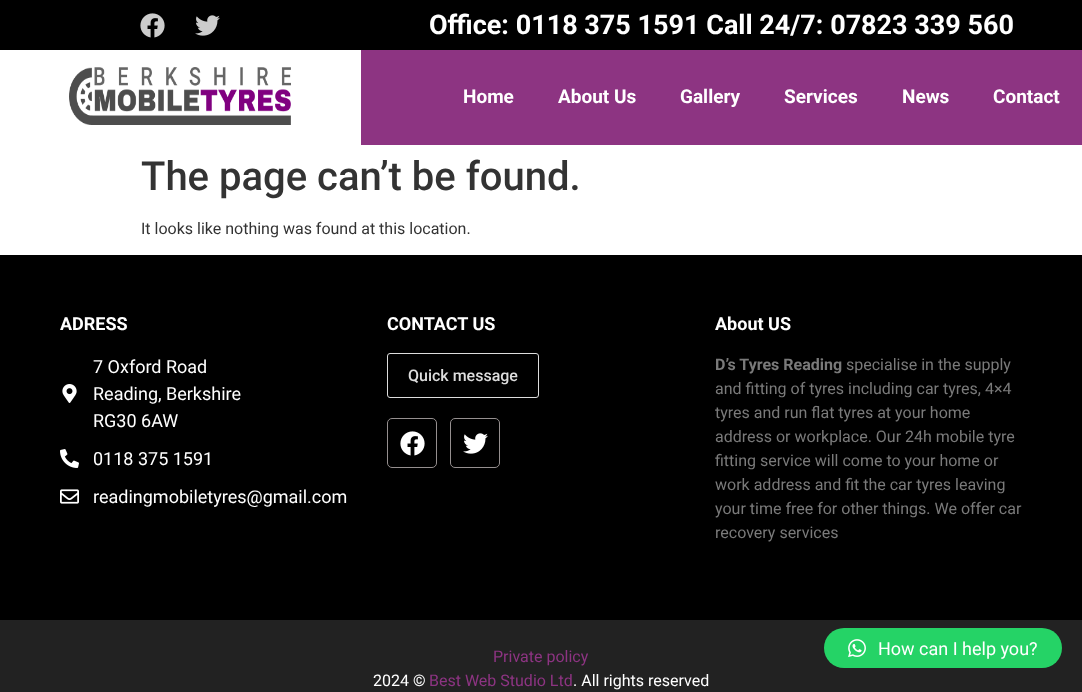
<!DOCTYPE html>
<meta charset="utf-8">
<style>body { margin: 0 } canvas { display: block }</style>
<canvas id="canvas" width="1082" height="692"></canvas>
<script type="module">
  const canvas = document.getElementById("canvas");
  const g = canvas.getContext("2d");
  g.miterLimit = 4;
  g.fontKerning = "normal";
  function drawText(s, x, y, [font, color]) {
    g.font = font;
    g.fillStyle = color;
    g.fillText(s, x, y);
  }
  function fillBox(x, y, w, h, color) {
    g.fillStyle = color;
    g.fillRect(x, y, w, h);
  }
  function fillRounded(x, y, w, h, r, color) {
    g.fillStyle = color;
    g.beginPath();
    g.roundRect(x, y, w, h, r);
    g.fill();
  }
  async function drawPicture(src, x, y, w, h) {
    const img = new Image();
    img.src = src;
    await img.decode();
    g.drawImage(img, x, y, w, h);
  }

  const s1 = ["bold 27px Roboto", "#FFFFFF"];
  const s2 = ["bold 19px Roboto", "#FFFFFF"];
  const s3 = ["500 40px Roboto", "#333333"];
  const s4 = ["16px Roboto", "#333333"];
  const s5 = ["bold 18px Roboto", "#FFFFFF"];
  const s6 = ["18px Roboto", "#FFFFFF"];
  const s7 = ["500 16px Roboto", "#DDDDDD"];
  const s8 = ["bold 16px Roboto", "#7A7A7A"];
  const s9 = ["16px Roboto", "#7A7A7A"];
  const s10 = ["16px Roboto", "#8D3482"];
  const s11 = ["16px Roboto", "#FFFFFF"];

  fillBox(0, 0, 1082, 692, "#FFFFFF");
  fillBox(0, 0, 1082, 50, "#000000");
  await drawPicture("pic1.png", 140, 13, 25, 25);
  await drawPicture("pic2.png", 195, 15, 25, 21);
  drawText("Office: 0118 375 1591 Call 24/7: 07823 339 560", 429, 34, s1);
  await drawPicture("pic3.png", 69, 67, 222, 58);
  fillBox(361, 50, 721, 95, "#8D3482");
  drawText("Home", 463, 103, s2);
  drawText("About Us", 558, 103, s2);
  drawText("Gallery", 680, 103, s2);
  drawText("Services", 784, 103, s2);
  drawText("News", 902, 103, s2);
  drawText("Contact", 993, 103, s2);
  drawText("The page can’t be found.", 141, 190, s3);
  drawText("It looks like nothing was found at this location.", 141, 234, s4);
  fillBox(0, 255, 1082, 365, "#000000");
  drawText("ADRESS", 60, 330, s5);
  await drawPicture("pic4.png", 62, 384, 15, 19);
  drawText("7 Oxford Road", 93, 373, s6);
  drawText("Reading, Berkshire", 93, 400, s6);
  drawText("RG30 6AW", 93, 427, s6);
  await drawPicture("pic5.png", 60, 449, 19, 19);
  drawText("0118 375 1591", 93, 465, s6);
  await drawPicture("pic6.png", 60, 489, 19, 15);
  drawText("readingmobiletyres@gmail.com", 93, 503, s6);
  drawText("CONTACT US", 387, 330, s5);
  g.beginPath();
  g.roundRect(387.5, 353.5, 151, 44, 2.5);
  g.strokeStyle = "#DDDDDD";
  g.stroke();
  drawText("Quick message", 408, 381, s7);
  g.beginPath();
  g.roundRect(387.5, 418.5, 49, 49, 4.5);
  g.strokeStyle = "#958F8F";
  g.stroke();
  await drawPicture("pic7.png", 400, 431, 25, 25);
  g.beginPath();
  g.roundRect(450.5, 418.5, 49, 49, 4.5);
  g.stroke();
  await drawPicture("pic8.png", 463, 433, 25, 21);
  drawText("About US", 715, 330, s5);
  drawText("D’s Tyres Reading", 715, 370, s8);
  drawText("specialise in the supply", 846, 370, s9);
  drawText("and fitting of tyres including car tyres, 4×4", 715, 394, s9);
  drawText("tyres and run flat tyres at your home", 715, 418, s9);
  drawText("address or workplace. Our 24h mobile tyre", 715, 442, s9);
  drawText("fitting service will come to your home or", 715, 466, s9);
  drawText("work address and fit the car tyres leaving", 715, 490, s9);
  drawText("your time free for other things. We offer car", 715, 514, s9);
  drawText("recovery services", 715, 538, s9);
  fillBox(0, 620, 1082, 72, "#222222");
  drawText("Private policy", 493, 662, s10);
  drawText("2024 ©", 373, 686, s11);
  drawText("Best Web Studio Ltd", 429, 686, s10);
  drawText(". All rights reserved", 573, 686, s11);
  fillRounded(824, 628, 238, 40, 20, "#25D366");
  await drawPicture("pic9.png", 848, 639, 18, 19);
  drawText("How can I help you?", 878, 655, s6);
</script>
